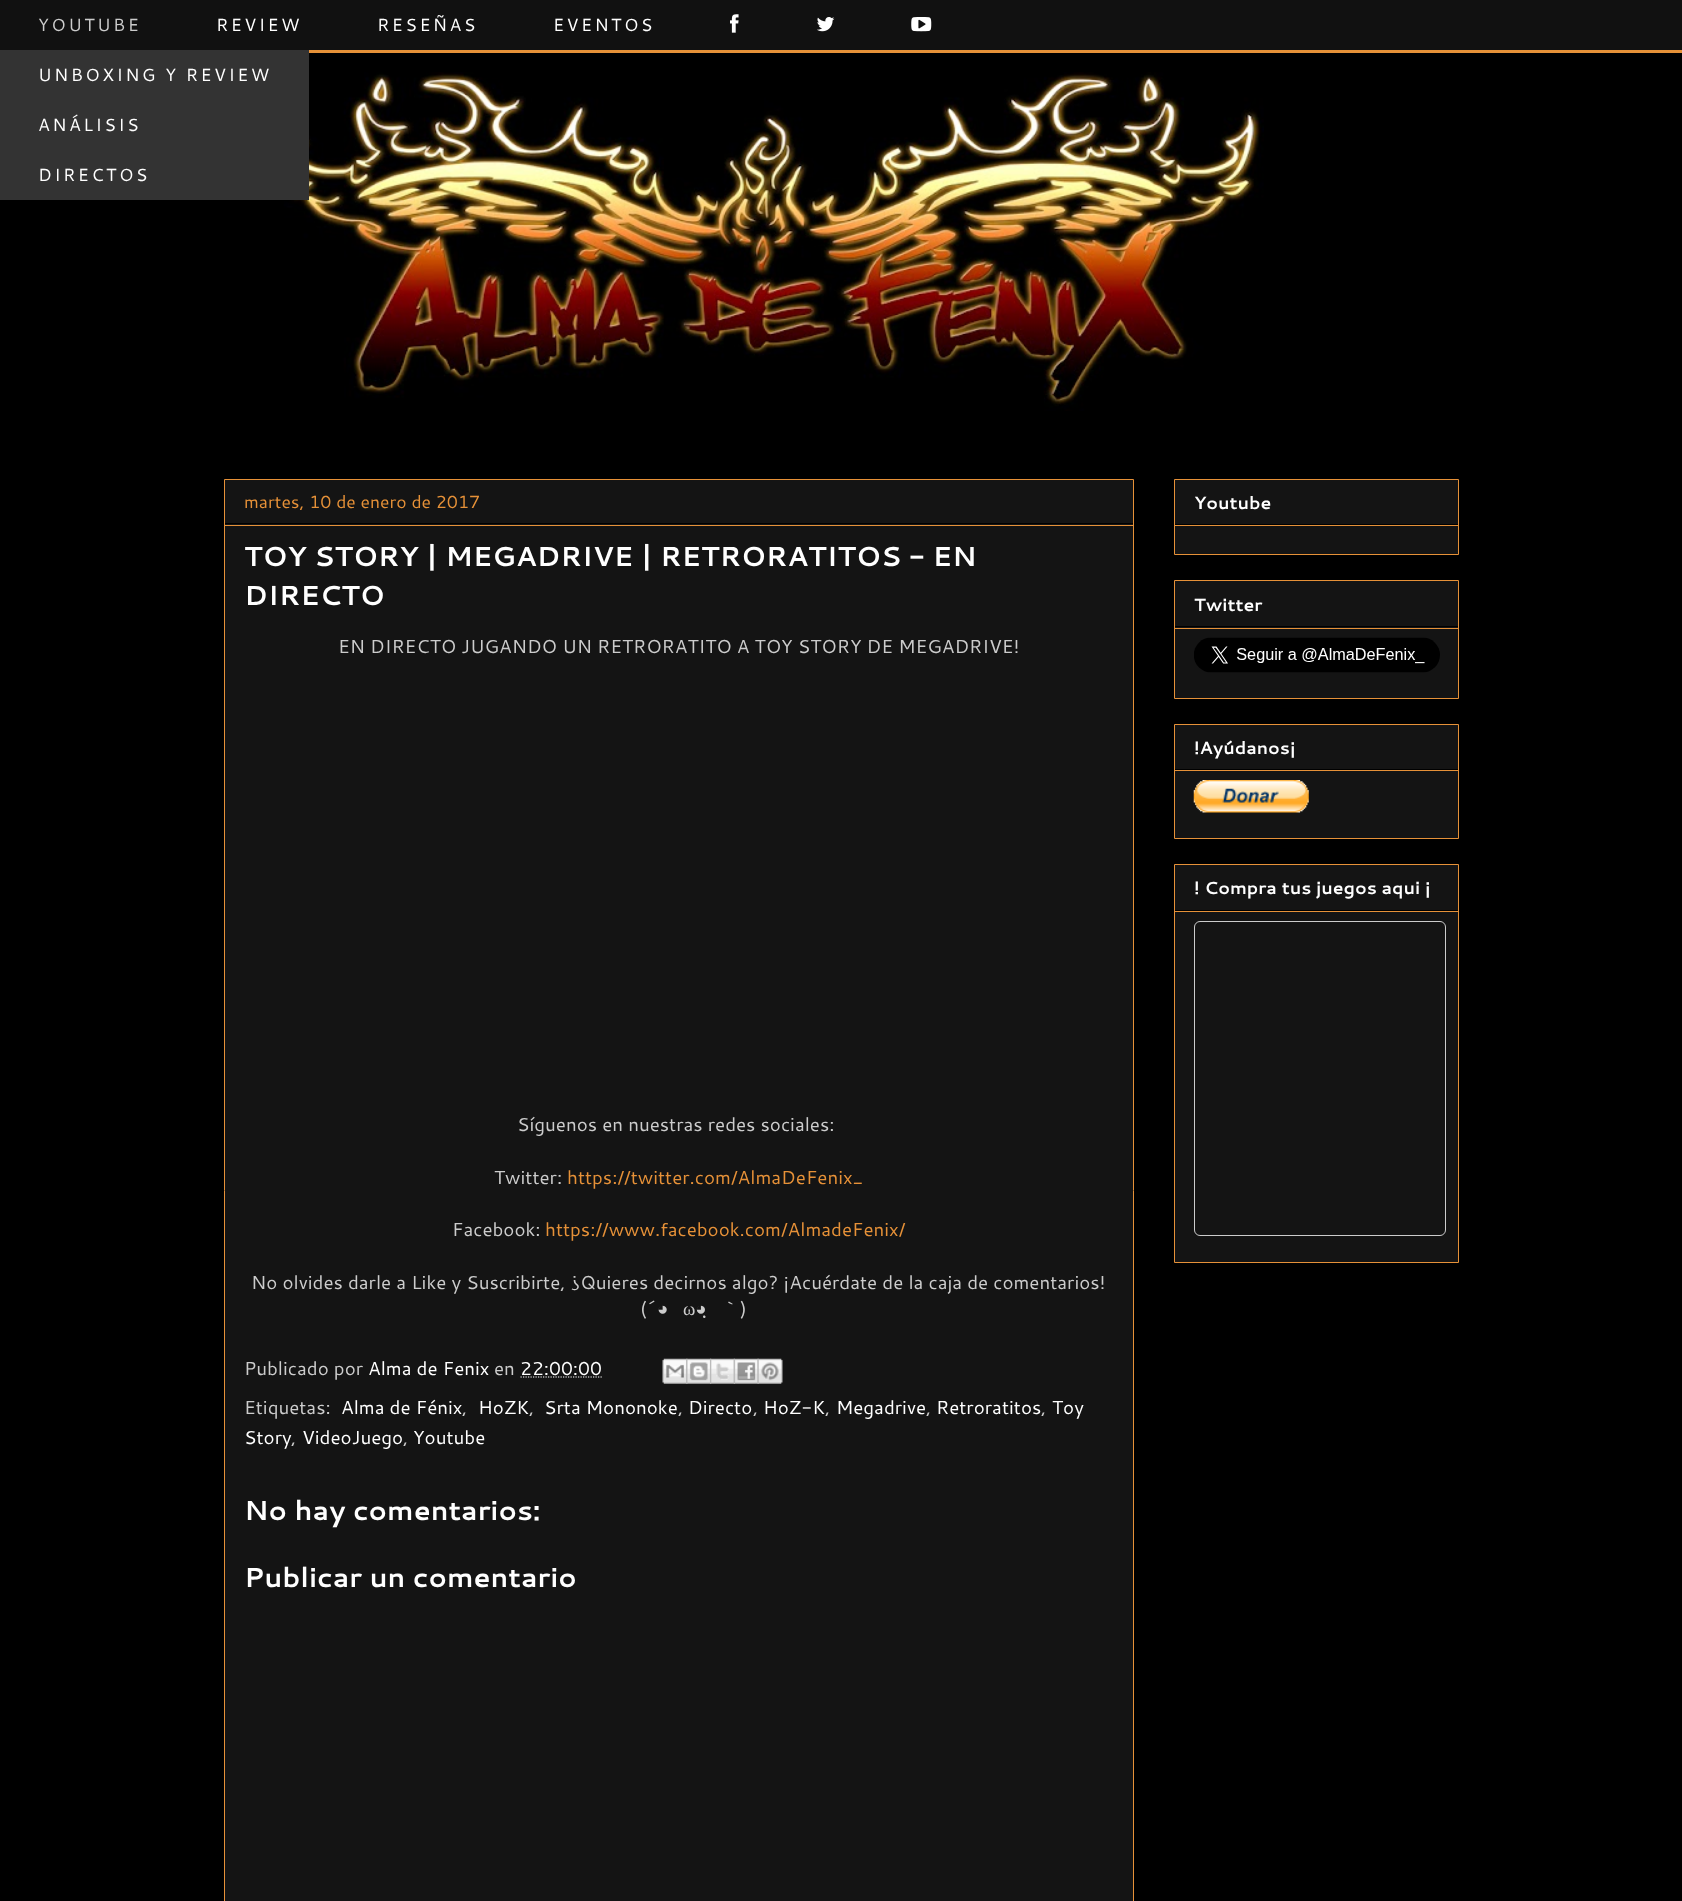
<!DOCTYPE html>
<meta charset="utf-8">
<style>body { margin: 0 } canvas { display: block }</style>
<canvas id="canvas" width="1682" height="1901"></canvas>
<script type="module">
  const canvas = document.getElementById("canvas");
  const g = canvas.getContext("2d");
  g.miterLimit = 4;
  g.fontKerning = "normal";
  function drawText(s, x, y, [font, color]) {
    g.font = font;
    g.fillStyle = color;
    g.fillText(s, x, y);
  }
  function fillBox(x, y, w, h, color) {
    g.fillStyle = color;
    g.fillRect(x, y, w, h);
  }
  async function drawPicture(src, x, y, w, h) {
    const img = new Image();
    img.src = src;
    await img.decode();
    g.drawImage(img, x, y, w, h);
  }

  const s1 = ["17.5px Cantarell", "#CCCCCC"];
  const s2 = ["17.5px Cantarell", "#FFFFFF"];
  const s3 = ["17.5px Cantarell", "#E69138"];
  const s4 = ["bold 27.5px Cantarell", "#FFFFFF"];
  const s5 = ["18.75px Cantarell", "#CCCCCC"];
  const s6 = ["18.75px Cantarell", "#E69138"];
  const s7 = ["500 18.75px WenQuanYi Zen Hei", "#CCCCCC"];
  const s8 = ["18.75px Liberation Serif", "#CCCCCC"];
  const s9 = ["18.75px Cantarell", "#FFFFFF"];
  const s10 = ["bold 17.5px Cantarell", "#FFFFFF"];

  fillBox(0, 0, 1682, 1901, "#000000");
  fillBox(0, 0, 1682, 50, "#111111");
  fillBox(309, 50, 1373, 3, "#E69138");
  g.letterSpacing = "2.5px";
  drawText("YOUTUBE", 38, 31, s1);
  await drawPicture("pic4.png", 264, 72, 1000, 339);
  fillBox(0, 50, 309, 150, "#333333");
  drawText("UNBOXING Y REVIEW", 38, 81, s2);
  drawText("ANÁLISIS", 38, 131, s2);
  drawText("DIRECTOS", 38, 181, s2);
  drawText("RESEÑAS", 377, 31, s2);
  await drawPicture("pic1.png", 730, 14, 9, 19);
  await drawPicture("pic2.png", 817, 17, 18, 15);
  await drawPicture("pic3.png", 911, 17, 21, 15);
  drawText("REVIEW", 216, 31, s2);
  drawText("EVENTOS", 553, 31, s2);
  g.fillStyle = "#141414";
  g.beginPath();
  g.rect(224.5, 479.5, 909, 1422);
  g.fill();
  g.strokeStyle = "#E69138";
  g.stroke();
  fillBox(225, 523, 908, 1, "#000000");
  g.letterSpacing = "0px";
  drawText("martes, 10 de enero de 2017", 244, 508, s3);
  fillBox(225, 525, 908, 1, "#E69138");
  drawText("TOY STORY | MEGADRIVE | RETRORATITOS - EN", 244, 566, s4);
  drawText("DIRECTO", 244, 605, s4);
  drawText("EN DIRECTO JUGANDO UN RETRORATITO A TOY STORY DE MEGADRIVE!", 338, 653, s5);
  drawText("Síguenos en nuestras redes sociales:", 517, 1131, s5);
  drawText("Twitter:", 494, 1184, s5);
  drawText("https://twitter.com/AlmaDeFenix_", 567, 1184, s6);
  drawText("Facebook:", 452, 1236, s5);
  drawText("https://www.facebook.com/AlmadeFenix/", 545, 1236, s6);
  drawText("No olvides darle a Like y Suscribirte, ¿Quieres decirnos algo? ¡Acuérdate de la caja de comentarios!", 251, 1289, s5);
  drawText("(´", 640, 1315, s5);
  drawText("｀", 721, 1315, s7);
  drawText(")", 740, 1315, s5);
  drawText("◕ฺω◕ฺ", 657, 1315, s8);
  drawText("Publicado por", 244, 1375, s5);
  drawText("Alma de Fenix", 368, 1375, s9);
  drawText("en", 494, 1375, s5);
  drawText("22:00:00", 520, 1375, s9);
  g.beginPath();
  g.moveTo(520.5, 1377);
  g.lineTo(602.5, 1377);
  g.strokeStyle = "#FFFFFF";
  g.lineWidth = 1.2;
  g.setLineDash([1.25, 1.25]);
  g.stroke();
  await drawPicture("pic5.png", 662, 1358, 26, 26);
  await drawPicture("pic6.png", 686, 1358, 26, 26);
  await drawPicture("pic7.png", 710, 1358, 25, 26);
  await drawPicture("pic8.png", 733, 1358, 26, 26);
  await drawPicture("pic9.png", 757, 1358, 26, 26);
  drawText("Etiquetas:", 244, 1414, s5);
  drawText("Alma de Fénix", 341, 1414, s9);
  drawText(",", 462, 1414, s5);
  drawText("HoZK", 478, 1414, s9);
  drawText(",", 529, 1414, s5);
  drawText("Srta Mononoke", 544, 1414, s9);
  drawText(",", 678, 1414, s5);
  drawText("Directo", 688, 1414, s9);
  drawText(",", 753, 1414, s5);
  drawText("HoZ-K", 763, 1414, s9);
  drawText(",", 825, 1414, s5);
  drawText("Megadrive", 836, 1414, s9);
  drawText(",", 926, 1414, s5);
  drawText("Retroratitos", 936, 1414, s9);
  drawText(",", 1041, 1414, s5);
  drawText("Toy", 1052, 1414, s9);
  drawText("Story", 244, 1444, s9);
  drawText(",", 291, 1444, s5);
  drawText("VideoJuego", 302, 1444, s9);
  drawText(",", 403, 1444, s5);
  drawText("Youtube", 413, 1444, s9);
  drawText("No hay comentarios:", 244, 1520, s4);
  drawText("Publicar un comentario", 244, 1587, s4);
  g.fillStyle = "#141414";
  g.beginPath();
  g.rect(1174.5, 479.5, 284, 75);
  g.fill();
  g.strokeStyle = "#E69138";
  g.lineWidth = 1;
  g.setLineDash([]);
  g.stroke();
  fillBox(1175, 524, 283, 1, "#000000");
  drawText("Youtube", 1194, 509, s10);
  fillBox(1175, 525, 283, 1, "#E69138");
  g.fillStyle = "#141414";
  g.beginPath();
  g.rect(1174.5, 580.5, 284, 118);
  g.fill();
  g.stroke();
  fillBox(1175, 626, 283, 1, "#000000");
  drawText("Twitter", 1194, 611, s10);
  fillBox(1175, 628, 283, 1, "#E69138");
  await drawPicture("pic10.png", 1194, 637, 246, 36);
  g.fillStyle = "#141414";
  g.beginPath();
  g.rect(1174.5, 724.5, 284, 114);
  g.fill();
  g.stroke();
  fillBox(1175, 769, 283, 1, "#000000");
  drawText("!Ayúdanos¡", 1194, 754, s10);
  fillBox(1175, 770, 283, 1, "#E69138");
  await drawPicture("pic11.png", 1193, 780, 116, 33);
  g.fillStyle = "#141414";
  g.beginPath();
  g.rect(1174.5, 864.5, 284, 398);
  g.fill();
  g.stroke();
  fillBox(1175, 910, 283, 1, "#000000");
  drawText("! Compra tus juegos aqui ¡", 1194, 894, s10);
  fillBox(1175, 911, 283, 1, "#E69138");
  g.beginPath();
  g.roundRect(1194.5, 921.5, 251, 314, 5.5);
  g.strokeStyle = "#CCCCCC";
  g.stroke();
</script>
